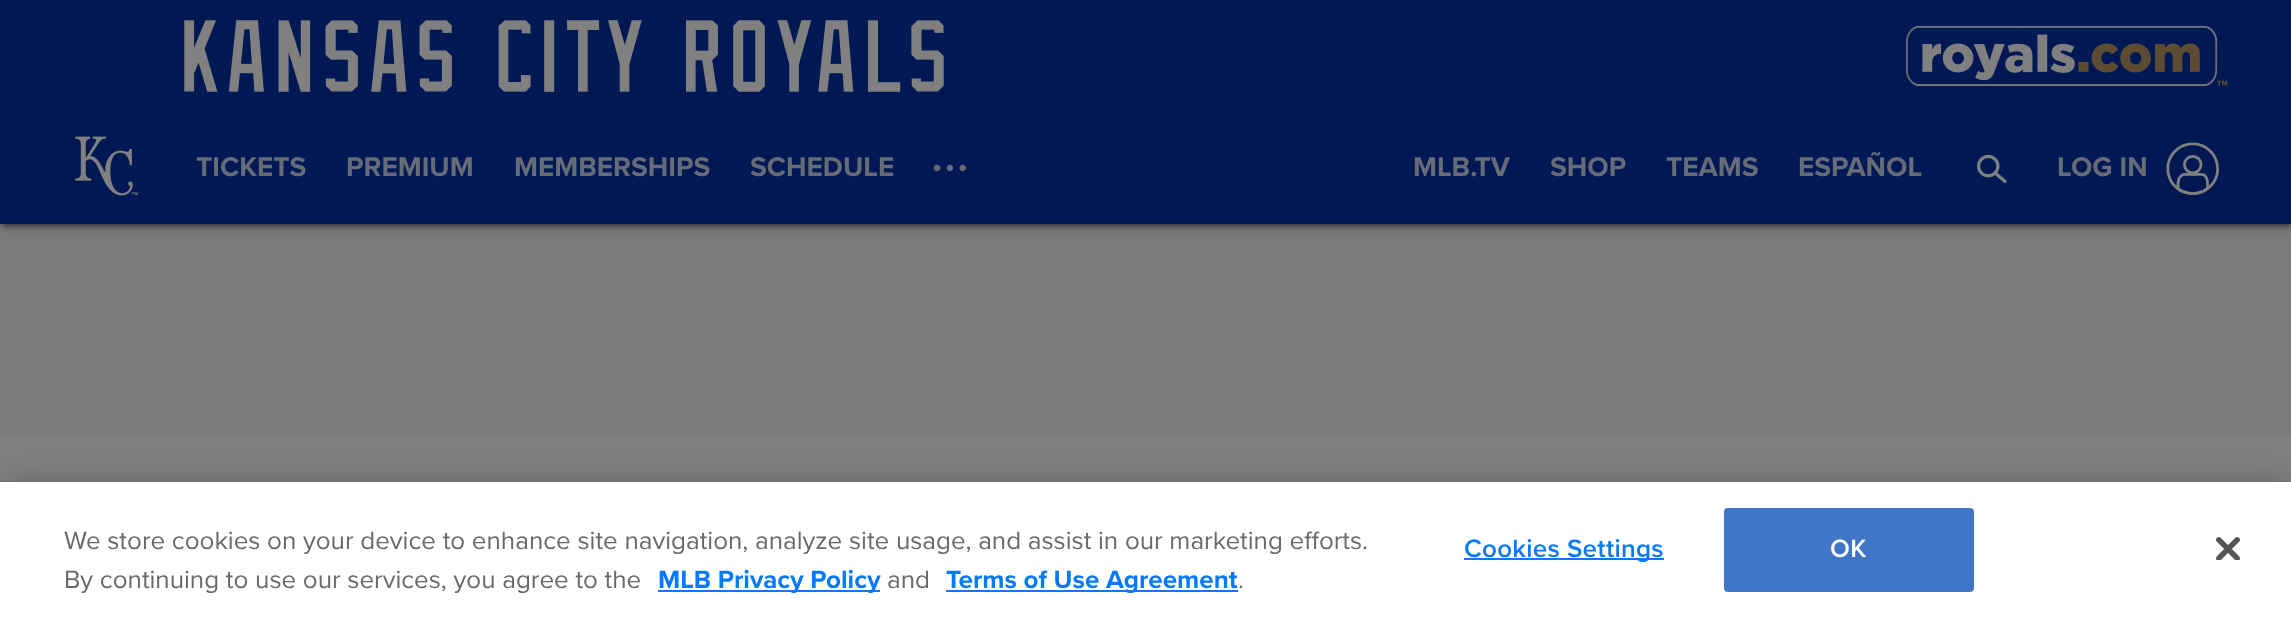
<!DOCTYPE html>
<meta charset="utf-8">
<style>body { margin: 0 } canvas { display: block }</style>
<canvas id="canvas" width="2291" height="623"></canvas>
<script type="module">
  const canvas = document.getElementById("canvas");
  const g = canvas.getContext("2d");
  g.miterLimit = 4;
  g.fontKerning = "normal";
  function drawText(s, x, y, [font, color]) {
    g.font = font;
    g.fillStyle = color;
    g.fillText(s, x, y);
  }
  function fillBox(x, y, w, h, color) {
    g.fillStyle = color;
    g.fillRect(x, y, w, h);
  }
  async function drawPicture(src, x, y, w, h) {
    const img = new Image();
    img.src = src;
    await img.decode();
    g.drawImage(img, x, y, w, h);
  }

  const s1 = ["bold 28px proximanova", "#666B77"];
  const s2 = ["26.02px proximanova", "#696969"];
  const s3 = ["bold 26.02px proximanova", "#057AFF"];
  const s4 = ["600 26.02px Proxima Nova", "#057AFF"];
  const s5 = ["600 26.02px Proxima Nova", "#FFFFFF"];

  fillBox(0, 0, 2291, 623, "#808080");
  fillBox(0, 224, 2291, 212, "#7A7A7A");
  g.fillStyle = "#000000";
  g.filter = "blur(5px)";
  g.beginPath();
  g.rect(2, 0, 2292, 224);
  g.fill();
  g.filter = "none";
  fillBox(0, 0, 2291, 224, "#001954");
  await drawPicture("pic1.png", 184, 20, 760, 72);
  await drawPicture("pic2.png", 1906, 26, 322, 60);
  await drawPicture("pic3.png", 75, 136, 63, 60);
  drawText("TICKETS", 196, 176, s1);
  drawText("PREMIUM", 346, 176, s1);
  drawText("MEMBERSHIPS", 514, 176, s1);
  drawText("SCHEDULE", 750, 176, s1);
  await drawPicture("pic4.png", 934, 164, 32, 8);
  drawText("MLB.TV", 1413, 176, s1);
  drawText("SHOP", 1550, 176, s1);
  drawText("TEAMS", 1666, 176, s1);
  drawText("ESPAÑOL", 1798, 176, s1);
  await drawPicture("pic5.png", 1977, 154, 30, 30);
  drawText("LOG IN", 2057, 176, s1);
  await drawPicture("pic6.png", 2166, 142, 54, 61);
  g.fillStyle = "rgba(0, 0, 0, 0.2)";
  g.filter = "blur(18px)";
  g.beginPath();
  g.rect(0, 482, 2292, 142);
  g.fill();
  g.filter = "none";
  fillBox(0, 482, 2291, 141, "#FFFFFF");
  drawText("We store cookies on your device to enhance site navigation, analyze site usage, and assist in our marketing efforts.", 64, 549, s2);
  drawText("By continuing to use our services, you agree to the", 64, 588, s2);
  fillBox(658, 590, 222, 2, "#057AFF");
  drawText("MLB Privacy Policy", 658, 588, s3);
  drawText("and", 887, 588, s2);
  fillBox(946, 590, 292, 2, "#057AFF");
  drawText("Terms of Use Agreement", 946, 588, s3);
  drawText(".", 1238, 588, s2);
  fillBox(1464, 558, 200, 2, "#057AFF");
  g.letterSpacing = "0.25px";
  drawText("Cookies Settings", 1464, 557, s4);
  g.fillStyle = "#4076C7";
  g.beginPath();
  g.roundRect(1725, 509, 248, 82, 3);
  g.fill();
  g.strokeStyle = "#4076C7";
  g.lineWidth = 2;
  g.stroke();
  drawText("OK", 1830, 557, s5);
  await drawPicture("pic7.png", 2216, 537, 24, 23);
</script>
